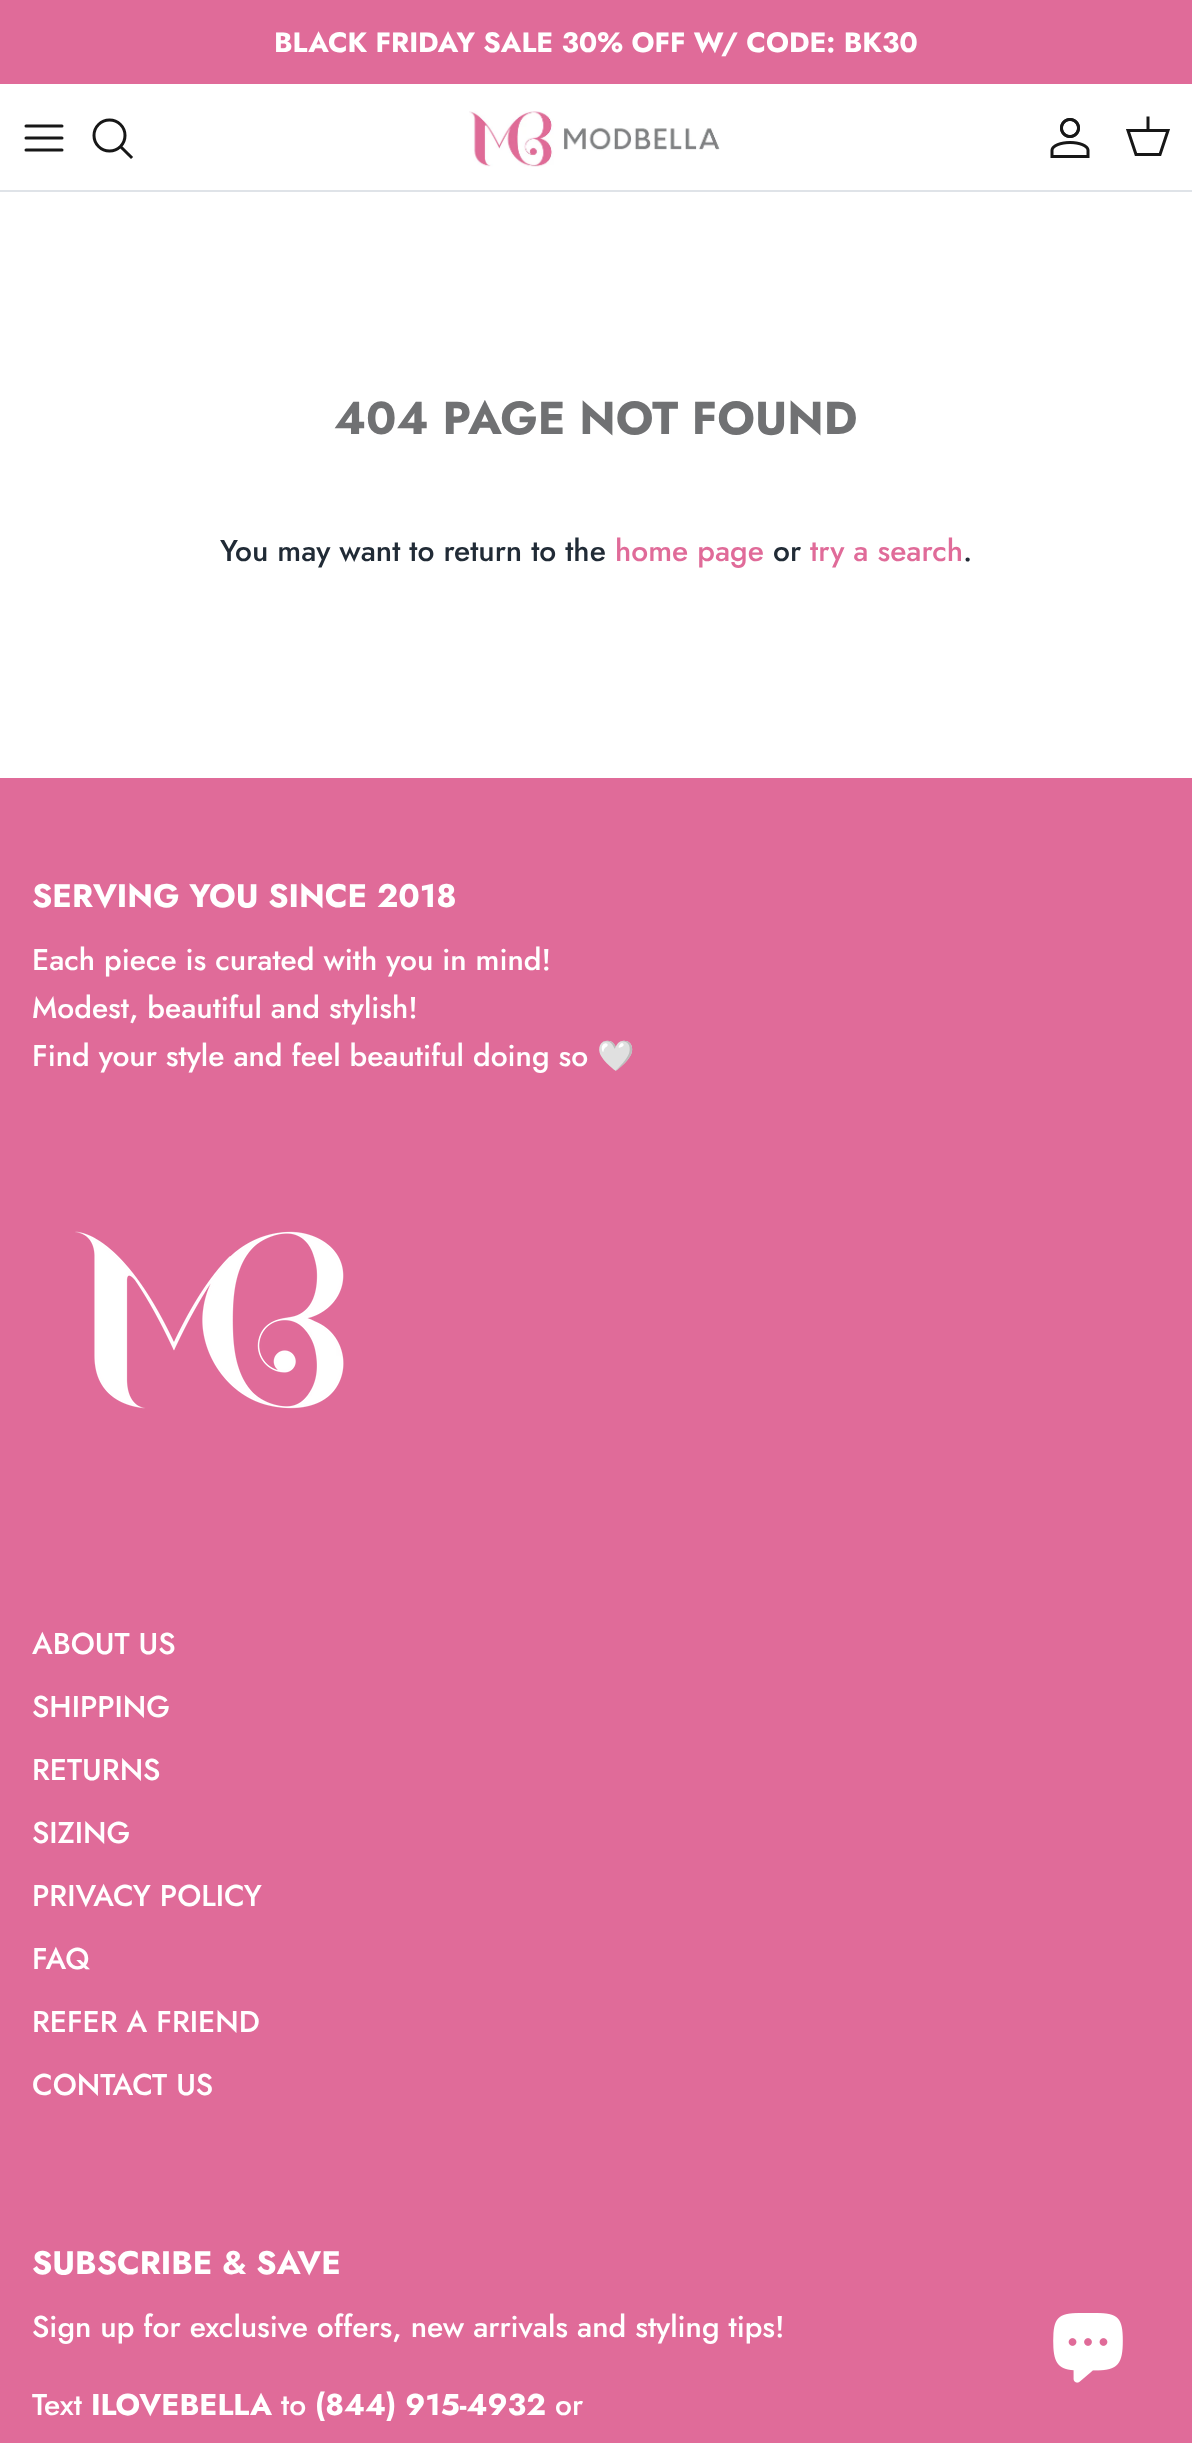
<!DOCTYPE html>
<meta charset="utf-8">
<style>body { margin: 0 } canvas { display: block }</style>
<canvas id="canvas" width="1192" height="2443"></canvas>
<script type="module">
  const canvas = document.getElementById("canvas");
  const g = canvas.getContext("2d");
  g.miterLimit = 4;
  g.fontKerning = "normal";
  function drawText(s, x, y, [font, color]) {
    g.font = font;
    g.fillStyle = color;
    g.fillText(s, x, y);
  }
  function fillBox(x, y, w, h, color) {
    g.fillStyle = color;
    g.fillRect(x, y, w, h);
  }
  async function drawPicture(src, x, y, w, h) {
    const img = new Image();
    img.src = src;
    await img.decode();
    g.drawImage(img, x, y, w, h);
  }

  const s1 = ["bold 28px Jost", "#FFFFFF"];
  const s2 = ["bold 46px Jost", "#707173"];
  const s3 = ["500 30px Jost", "#212B36"];
  const s4 = ["500 30px Jost", "#E06B99"];
  const s5 = ["bold 32.5px Jost", "#FFFFFF"];
  const s6 = ["500 30px Jost", "#FFFFFF"];
  const s7 = ["30px Noto Color Emoji", "#FFFFFF"];
  const s8 = ["bold 30px Jost", "#FFFFFF"];

  fillBox(0, 0, 1192, 2443, "#FFFFFF");
  fillBox(0, 0, 1192, 84, "#E06B99");
  drawText("BLACK FRIDAY SALE 30% OFF W/ CODE: BK30", 274, 52, s1);
  fillBox(0, 190, 1192, 2, "#DFE3E8");
  g.beginPath();
  g.moveTo(26, 138);
  g.lineTo(62, 138);
  g.moveTo(26, 126);
  g.lineTo(62, 126);
  g.moveTo(26, 150);
  g.lineTo(62, 150);
  g.strokeStyle = "#171717";
  g.lineWidth = 3;
  g.lineCap = "round";
  g.lineJoin = "round";
  g.stroke();
  g.beginPath();
  g.arc(109.5, 135.5, 15.5, 0, Math.PI * 2);
  g.stroke();
  g.beginPath();
  g.moveTo(122, 148);
  g.lineTo(131, 157);
  g.lineCap = "square";
  g.lineJoin = "miter";
  g.stroke();
  await drawPicture("pic1.png", 469, 111, 251, 56);
  await drawPicture("pic2.png", 1050, 118, 40, 40);
  g.beginPath();
  g.moveTo(1128, 130.5);
  g.lineTo(1168, 130.5);
  g.lineTo(1160, 154.5);
  g.lineTo(1136, 154.5);
  g.closePath();
  g.lineCap = "butt";
  g.stroke();
  g.beginPath();
  g.moveTo(1148, 130);
  g.lineTo(1148, 118);
  g.lineCap = "square";
  g.stroke();
  drawText("404 PAGE NOT FOUND", 334, 434, s2);
  drawText("You may want to return to the", 220, 561, s3);
  drawText("home page", 615, 561, s4);
  drawText("or", 773, 561, s3);
  drawText("try a search", 810, 561, s4);
  drawText(".", 963, 561, s3);
  fillBox(0, 778, 1192, 1665, "#E06B99");
  drawText("SERVING YOU SINCE 2018", 32, 907, s5);
  drawText("Each piece is curated with you in mind!", 32, 970, s6);
  drawText("Modest, beautiful and stylish!", 32, 1018, s6);
  drawText("Find your style and feel beautiful doing so", 32, 1066, s6);
  drawText("🤍", 597, 1066, s7);
  await drawPicture("pic3.png", 75, 1231, 269, 178);
  drawText("ABOUT US", 32, 1654, s6);
  drawText("SHIPPING", 32, 1717, s6);
  drawText("RETURNS", 32, 1780, s6);
  drawText("SIZING", 32, 1843, s6);
  drawText("PRIVACY POLICY", 32, 1906, s6);
  drawText("FAQ", 32, 1969, s6);
  drawText("REFER A FRIEND", 32, 2032, s6);
  drawText("CONTACT US", 32, 2095, s6);
  drawText("SUBSCRIBE & SAVE", 32, 2274, s5);
  drawText("Sign up for exclusive offers, new arrivals and styling tips!", 32, 2337, s6);
  drawText("Text", 32, 2415, s6);
  drawText("ILOVEBELLA", 91, 2415, s8);
  drawText("to", 281, 2415, s6);
  drawText("(844) 915-4932", 315, 2415, s8);
  drawText("or", 555, 2415, s6);
  await drawPicture("pic4.png", 1053, 2313, 70, 70);
</script>
